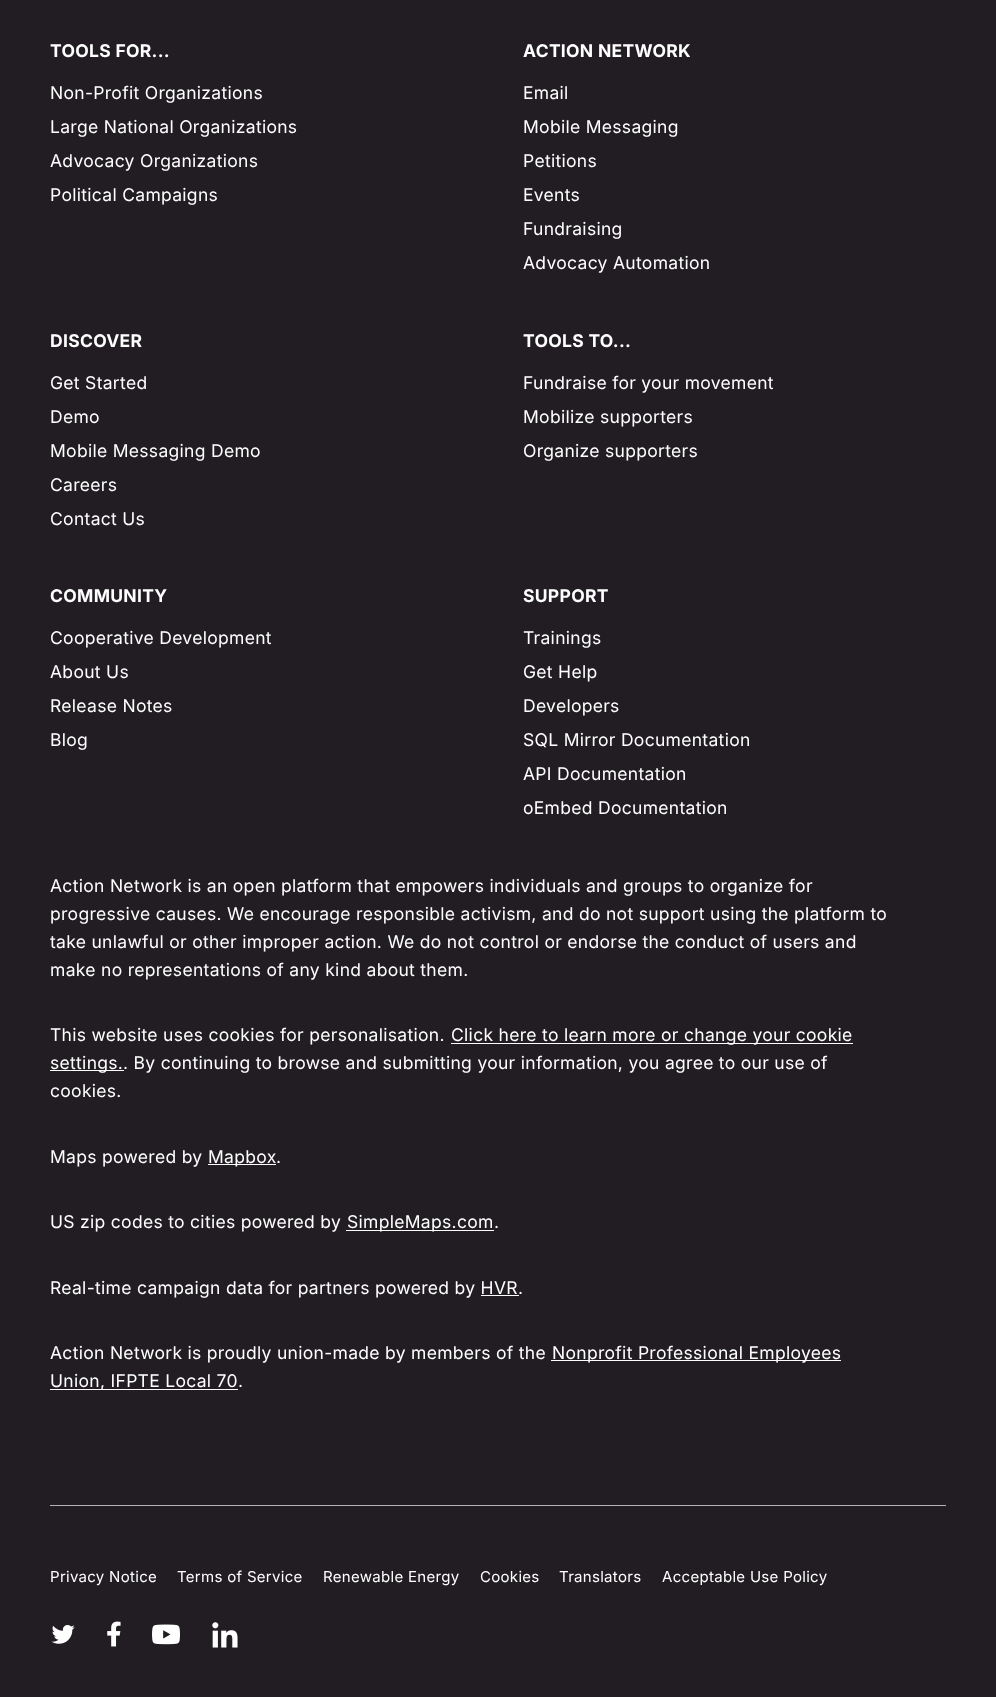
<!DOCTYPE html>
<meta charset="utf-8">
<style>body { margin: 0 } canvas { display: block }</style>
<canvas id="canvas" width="996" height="1697"></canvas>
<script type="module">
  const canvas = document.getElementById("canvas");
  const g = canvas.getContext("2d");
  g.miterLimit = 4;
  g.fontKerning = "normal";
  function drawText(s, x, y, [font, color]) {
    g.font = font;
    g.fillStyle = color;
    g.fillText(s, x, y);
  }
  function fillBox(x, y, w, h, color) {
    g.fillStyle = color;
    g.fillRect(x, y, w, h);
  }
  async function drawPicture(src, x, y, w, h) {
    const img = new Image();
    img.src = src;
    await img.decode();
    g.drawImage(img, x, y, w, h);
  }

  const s1 = ["bold 17.5px Inter", "#FFFFFF"];
  const s2 = ["17.5px Inter", "#FFFFFF"];
  const s3 = ["15px Inter", "#FFFFFF"];

  fillBox(0, 0, 996, 1697, "#211D22");
  g.letterSpacing = "0.3px";
  drawText("TOOLS FOR...", 50, 57, s1);
  drawText("Non-Profit Organizations", 50, 99, s2);
  drawText("Large National Organizations", 50, 133, s2);
  drawText("Advocacy Organizations", 50, 167, s2);
  drawText("Political Campaigns", 50, 201, s2);
  drawText("ACTION NETWORK", 523, 57, s1);
  drawText("Email", 523, 99, s2);
  drawText("Mobile Messaging", 523, 133, s2);
  drawText("Petitions", 523, 167, s2);
  drawText("Events", 523, 201, s2);
  drawText("Fundraising", 523, 235, s2);
  drawText("Advocacy Automation", 523, 269, s2);
  drawText("DISCOVER", 50, 347, s1);
  drawText("Get Started", 50, 389, s2);
  drawText("Demo", 50, 423, s2);
  drawText("Mobile Messaging Demo", 50, 457, s2);
  drawText("Careers", 50, 491, s2);
  drawText("Contact Us", 50, 525, s2);
  drawText("TOOLS TO...", 523, 347, s1);
  drawText("Fundraise for your movement", 523, 389, s2);
  drawText("Mobilize supporters", 523, 423, s2);
  drawText("Organize supporters", 523, 457, s2);
  drawText("COMMUNITY", 50, 602, s1);
  drawText("Cooperative Development", 50, 644, s2);
  drawText("About Us", 50, 678, s2);
  drawText("Release Notes", 50, 712, s2);
  drawText("Blog", 50, 746, s2);
  drawText("SUPPORT", 523, 602, s1);
  drawText("Trainings", 523, 644, s2);
  drawText("Get Help", 523, 678, s2);
  drawText("Developers", 523, 712, s2);
  drawText("SQL Mirror Documentation", 523, 746, s2);
  drawText("API Documentation", 523, 780, s2);
  drawText("oEmbed Documentation", 523, 814, s2);
  drawText("Action Network is an open platform that empowers individuals and groups to organize for", 50, 892, s2);
  drawText("progressive causes. We encourage responsible activism, and do not support using the platform to", 50, 920, s2);
  drawText("take unlawful or other improper action. We do not control or endorse the conduct of users and", 50, 948, s2);
  drawText("make no representations of any kind about them.", 50, 976, s2);
  drawText("This website uses cookies for personalisation.", 50, 1041, s2);
  fillBox(451, 1043, 402, 1, "#FFFFFF");
  drawText("Click here to learn more or change your cookie", 451, 1041, s2);
  fillBox(50, 1070, 74, 1, "#FFFFFF");
  drawText("settings.", 50, 1069, s2);
  drawText(". By continuing to browse and submitting your information, you agree to our use of", 123, 1069, s2);
  drawText("cookies.", 50, 1097, s2);
  drawText("Maps powered by", 50, 1163, s2);
  fillBox(208, 1164, 68, 1, "#FFFFFF");
  drawText("Mapbox", 208, 1163, s2);
  drawText(".", 276, 1163, s2);
  drawText("US zip codes to cities powered by", 50, 1228, s2);
  fillBox(346, 1230, 148, 1, "#FFFFFF");
  drawText("SimpleMaps.com", 347, 1228, s2);
  drawText(".", 494, 1228, s2);
  drawText("Real-time campaign data for partners powered by HVR", 50, 1294, s2);
  drawText(".", 518, 1294, s2);
  fillBox(481, 1295, 38, 1, "#FFFFFF");
  drawText("Action Network is proudly union-made by members of the", 50, 1359, s2);
  fillBox(551, 1360, 290, 1, "#FFFFFF");
  drawText("Nonprofit Professional Employees", 552, 1359, s2);
  fillBox(50, 1389, 188, 1, "#FFFFFF");
  drawText("Union, IFPTE Local 70", 50, 1387, s2);
  drawText(".", 238, 1387, s2);
  fillBox(50, 1505, 896, 1, "#B3B3B3");
  drawText("Privacy Notice", 50, 1582, s3);
  drawText("Terms of Service", 177, 1582, s3);
  drawText("Renewable Energy", 323, 1582, s3);
  drawText("Cookies", 480, 1582, s3);
  drawText("Translators", 559, 1582, s3);
  drawText("Acceptable Use Policy", 662, 1582, s3);
  await drawPicture("pic1.png", 51, 1625, 24, 19);
  await drawPicture("pic2.png", 107, 1621, 14, 26);
  await drawPicture("pic3.png", 152, 1624, 28, 21);
  await drawPicture("pic4.png", 212, 1622, 26, 26);
</script>
